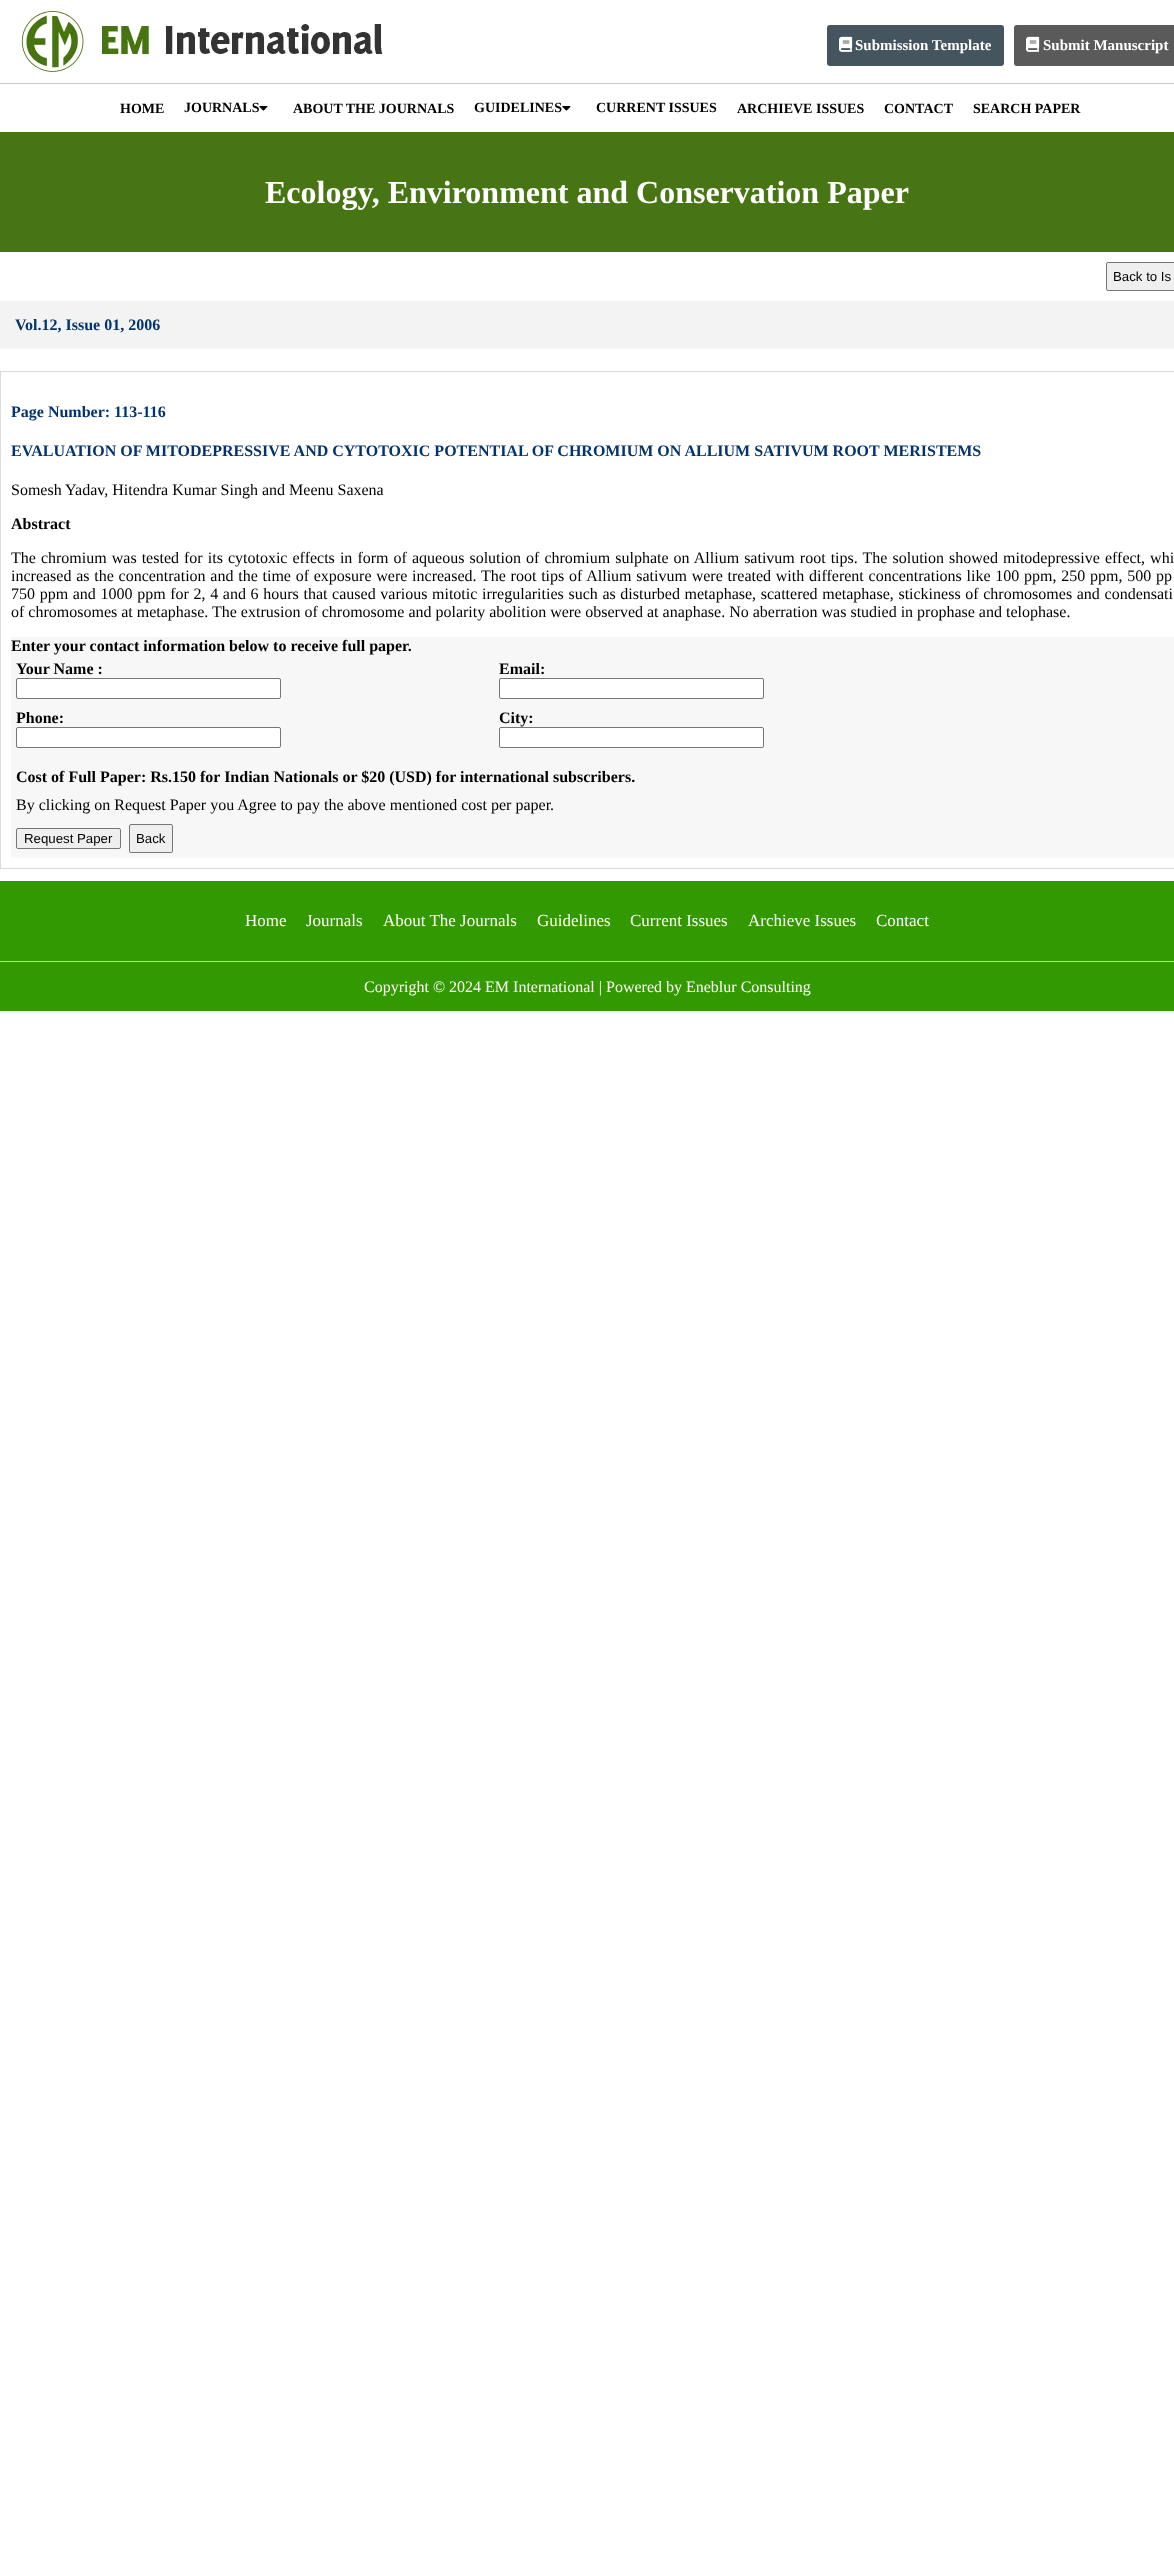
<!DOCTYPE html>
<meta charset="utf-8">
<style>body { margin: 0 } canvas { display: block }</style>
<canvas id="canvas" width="1174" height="2559"></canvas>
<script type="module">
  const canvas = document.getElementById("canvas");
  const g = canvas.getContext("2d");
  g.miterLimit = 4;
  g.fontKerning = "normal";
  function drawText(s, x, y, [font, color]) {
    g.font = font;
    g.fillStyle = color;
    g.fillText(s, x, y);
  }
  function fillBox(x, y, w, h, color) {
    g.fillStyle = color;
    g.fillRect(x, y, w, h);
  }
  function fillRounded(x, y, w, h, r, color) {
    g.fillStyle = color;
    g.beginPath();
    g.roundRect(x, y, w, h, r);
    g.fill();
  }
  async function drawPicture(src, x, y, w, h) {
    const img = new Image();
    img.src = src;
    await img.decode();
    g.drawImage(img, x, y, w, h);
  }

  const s1 = ["bold 15px Liberation Serif", "#FFFFFF"];
  const s2 = ["bold 14px Liberation Serif", "#000000"];
  const s3 = ["bold 32px Liberation Serif", "#FFFFFF"];
  const s4 = ["13.25px Liberation Sans", "#000000"];
  const s5 = ["bold 16px Liberation Serif", "#03336D"];
  const s6 = ["16px Liberation Serif", "#000000"];
  const s7 = ["bold 16px Liberation Serif", "#000000"];
  const s8 = ["17px Liberation Serif", "#FFFFFF"];
  const s9 = ["16px Liberation Serif", "#FFFFFF"];

  fillBox(0, 0, 1174, 2559, "#FFFFFF");
  await drawPicture("pic1.png", 21, 11, 362, 62);
  fillRounded(827, 25, 177, 41, 3, "#45555F");
  await drawPicture("pic2.png", 839, 36, 14, 16);
  drawText("Submission Template", 855, 50, s1);
  fillRounded(1014, 25, 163, 41, 3, "#5A5A5A");
  await drawPicture("pic3.png", 1026, 36, 14, 16);
  drawText("Submit Manuscript", 1043, 50, s1);
  fillBox(0, 83, 1174, 1, "#CACACA");
  drawText("HOME", 120, 113, s2);
  drawText("JOURNALS", 184, 112, s2);
  await drawPicture("pic4.png", 259, 106, 9, 5);
  drawText("ABOUT THE JOURNALS", 293, 113, s2);
  drawText("GUIDELINES", 474, 112, s2);
  await drawPicture("pic4.png", 562, 106, 9, 5);
  drawText("CURRENT ISSUES", 596, 112, s2);
  drawText("ARCHIEVE ISSUES", 737, 113, s2);
  drawText("CONTACT", 884, 113, s2);
  drawText("SEARCH PAPER", 973, 113, s2);
  fillBox(0, 132, 1174, 120, "#477514");
  drawText("Ecology, Environment and Conservation Paper", 265, 203, s3);
  g.fillStyle = "#EFEFEF";
  g.beginPath();
  g.roundRect(1106.5, 262.5, 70, 28, 1.5);
  g.fill();
  g.strokeStyle = "#767676";
  g.stroke();
  drawText("Back to Is", 1113, 281, s4);
  fillBox(0, 301, 1174, 48, "#F3F3F3");
  drawText("Vol.12, Issue 01, 2006", 15, 330, s5);
  g.strokeStyle = "#DDDADA";
  g.strokeRect(0.5, 371.5, 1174, 497);
  drawText("Page Number: 113-116", 11, 417, s5);
  drawText("EVALUATION OF MITODEPRESSIVE AND CYTOTOXIC POTENTIAL OF CHROMIUM ON ALLIUM SATIVUM ROOT MERISTEMS", 11, 456, s5);
  drawText("Somesh Yadav, Hitendra Kumar Singh and Meenu Saxena", 11, 495, s6);
  drawText("Abstract", 11, 529, s7);
  g.wordSpacing = "1.05px";
  drawText("The chromium was tested for its cytotoxic effects in form of aqueous solution of chromium sulphate on Allium sativum root tips. The solution showed mitodepressive effect, whi", 11, 563, s6);
  g.wordSpacing = "0.75px";
  drawText("increased as the concentration and the time of exposure were increased. The root tips of Allium sativum were treated with different concentrations like 100 ppm, 250 ppm, 500 pp", 11, 581, s6);
  g.wordSpacing = "0.65px";
  drawText("750 ppm and 1000 ppm for 2, 4 and 6 hours that caused various mitotic irregularities such as disturbed metaphase, scattered metaphase, stickiness of chromosomes and condensati", 11, 599, s6);
  g.wordSpacing = "0px";
  drawText("of chromosomes at metaphase. The extrusion of chromosome and polarity abolition were observed at anaphase. No aberration was studied in prophase and telophase.", 11, 617, s6);
  fillBox(11, 637, 1163, 221, "#F7F7F7");
  drawText("Enter your contact information below to receive full paper.", 11, 651, s7);
  drawText("Your Name :", 16, 674, s7);
  g.fillStyle = "#FFFFFF";
  g.beginPath();
  g.roundRect(16.5, 678.5, 264, 20, 1.5);
  g.fill();
  g.strokeStyle = "#767676";
  g.stroke();
  drawText("Email:", 499, 674, s7);
  g.fillStyle = "#FFFFFF";
  g.beginPath();
  g.roundRect(499.5, 678.5, 264, 20, 1.5);
  g.fill();
  g.stroke();
  drawText("Phone:", 16, 723, s7);
  g.fillStyle = "#FFFFFF";
  g.beginPath();
  g.roundRect(16.5, 727.5, 264, 20, 1.5);
  g.fill();
  g.stroke();
  drawText("City:", 499, 723, s7);
  g.fillStyle = "#FFFFFF";
  g.beginPath();
  g.roundRect(499.5, 727.5, 264, 20, 1.5);
  g.fill();
  g.stroke();
  drawText("Cost of Full Paper: Rs.150 for Indian Nationals or $20 (USD) for international subscribers.", 16, 782, s7);
  drawText("By clicking on Request Paper you Agree to pay the above mentioned cost per paper.", 16, 810, s6);
  g.fillStyle = "#EFEFEF";
  g.beginPath();
  g.roundRect(16.5, 828.5, 104, 20, 1.5);
  g.fill();
  g.stroke();
  drawText("Request Paper", 24, 843, s4);
  g.fillStyle = "#EFEFEF";
  g.beginPath();
  g.roundRect(129.5, 824.5, 43, 28, 1.5);
  g.fill();
  g.stroke();
  drawText("Back", 136, 843, s4);
  fillBox(0, 881, 1174, 130, "#339900");
  drawText("Home", 245, 926, s8);
  drawText("Journals", 306, 926, s8);
  drawText("About The Journals", 383, 926, s8);
  drawText("Guidelines", 537, 926, s8);
  drawText("Current Issues", 630, 926, s8);
  drawText("Archieve Issues", 748, 926, s8);
  drawText("Contact", 876, 926, s8);
  fillBox(0, 961, 1174, 1, "#CACACA");
  drawText("Copyright © 2024 EM International | Powered by Eneblur Consulting", 364, 992, s9);
</script>
